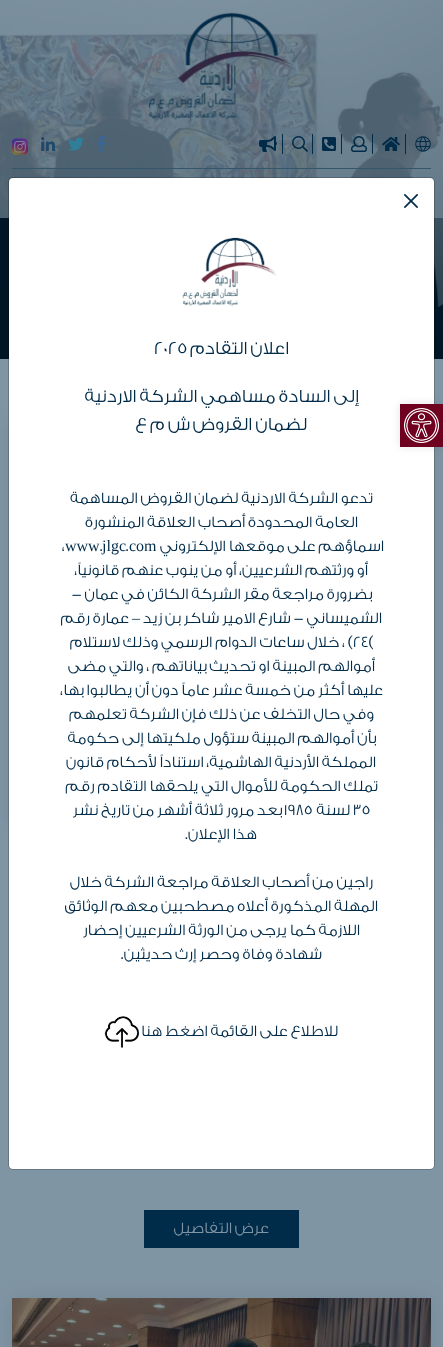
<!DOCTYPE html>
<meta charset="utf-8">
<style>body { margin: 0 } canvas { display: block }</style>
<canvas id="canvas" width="443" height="1347"></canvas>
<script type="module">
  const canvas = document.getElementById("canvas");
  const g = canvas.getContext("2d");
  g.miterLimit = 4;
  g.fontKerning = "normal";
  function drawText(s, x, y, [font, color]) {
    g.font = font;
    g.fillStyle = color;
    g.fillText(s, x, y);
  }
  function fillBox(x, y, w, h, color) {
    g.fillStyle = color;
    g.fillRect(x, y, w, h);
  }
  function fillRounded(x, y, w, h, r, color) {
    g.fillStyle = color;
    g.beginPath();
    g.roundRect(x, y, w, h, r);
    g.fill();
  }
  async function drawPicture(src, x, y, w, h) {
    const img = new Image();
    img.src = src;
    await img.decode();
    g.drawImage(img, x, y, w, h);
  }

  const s1 = ["300 18.7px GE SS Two", "#002B49"];
  const s2 = ["300 16px GE SS Two", "#002B49"];
  const s3 = ["16px Liberation Serif", "#002B49"];
  const s4 = ["300 16px GE SS Two", "#8095A4"];

  fillBox(0, 0, 443, 1347, "#8095A4");
  await drawPicture("pic16.png", 0, 0, 443, 359);
  fillBox(0, 0, 443, 218, "rgba(128, 149, 164, 0.6)");
  await drawPicture("pic1.png", 148, 12, 148, 108);
  fillBox(12, 168, 419, 1, "#34566D");
  await drawPicture("pic2.png", 415, 136, 16, 16);
  fillBox(405, 134, 1, 20, "#002B49");
  await drawPicture("pic3.png", 382, 137, 18, 14);
  fillBox(372, 134, 1, 20, "#002B49");
  await drawPicture("pic4.png", 351, 136, 16, 16);
  fillBox(341, 134, 1, 20, "#002B49");
  await drawPicture("pic5.png", 322, 137, 14, 14);
  fillBox(312, 134, 1, 20, "#002B49");
  await drawPicture("pic6.png", 292, 136, 16, 16);
  fillBox(282, 134, 1, 20, "#002B49");
  await drawPicture("pic7.png", 259, 136, 18, 16);
  await drawPicture("pic8.png", 97, 136, 9, 16);
  await drawPicture("pic9.png", 68, 137, 16, 14);
  await drawPicture("pic10.png", 41, 137, 14, 14);
  await drawPicture("pic11.png", 12, 138, 16, 17);
  g.fillStyle = "rgba(0, 22, 37, 0.1)";
  g.filter = "blur(10px)";
  g.beginPath();
  g.rect(12, 419, 419, 409);
  g.fill();
  g.filter = "none";
  fillRounded(9, 178, 425, 991, 4, "#FFFFFF");
  g.beginPath();
  g.roundRect(8.5, 177.5, 426, 992, 4.5);
  g.strokeStyle = "rgba(0, 0, 0, 0.2)";
  g.stroke();
  g.fillStyle = "rgba(0, 0, 0, 0.1)";
  g.filter = "blur(5px)";
  g.beginPath();
  g.rect(400, 404, 43, 43);
  g.fill();
  g.filter = "none";
  fillBox(400, 404, 43, 43, "#70001F");
  await drawPicture("pic12.png", 404, 408, 35, 35);
  await drawPicture("pic13.png", 404, 194, 14, 14);
  await drawPicture("pic14.png", 182, 237, 95, 69);
  g.direction = "rtl";
  drawText("اعلان التقادم", 289, 354, s1);
  g.direction = "ltr";
  drawText("2025", 154, 354, s1);
  g.direction = "rtl";
  drawText("إلى السادة مساهمي الشركة الاردنية", 359, 402, s1);
  drawText("لضمان القروض", 307, 430, s1);
  drawText("ش م ع", 190, 430, s1);
  drawText("تدعو الشركة الاردنية لضمان القروض المساهمة", 373, 503, s2);
  drawText("العامة المحدودة أصحاب العلاقة المنشورة", 358, 527, s2);
  drawText("اسماؤهم على موقعها الإلكتروني", 384, 551, s2);
  g.direction = "ltr";
  drawText("com", 129, 551, s3);
  drawText(".", 126, 551, s2);
  drawText("www", 65, 551, s3);
  drawText(".", 100, 551, s2);
  drawText("jlgc", 102, 551, s3);
  drawText("،", 62, 551, s2);
  g.direction = "rtl";
  drawText("أو ورثتهم الشرعيين، أو من ينوب عنهم قانونياً،", 368, 575, s2);
  drawText("بضرورة مراجعة مقر الشركة الكائن في عمان -", 372, 599, s2);
  drawText("الشميساني - شارع الامير شاكر بن زيد", 382, 623, s2);
  drawText("–", 140, 623, s3);
  drawText("عمارة رقم", 129, 623, s2);
  g.direction = "ltr";
  drawText("24(", 353, 647, s2);
  g.direction = "rtl";
  drawText(") ، خلال ساعات الدوام الرسمي وذلك لاستلام", 353, 647, s2);
  drawText("أموالهم المبينة او تحديث بياناتهم ، والتي مضى", 375, 671, s2);
  drawText("عليها أكثر من خمسة عشر عاماً دون أن يطالبوا بها،", 383, 695, s2);
  drawText("وفي حال التخلف عن ذلك فإن الشركة تعلمهم", 374, 719, s2);
  drawText("بأن أموالهم المبينة ستؤول ملكيتها إلى حكومة", 376, 743, s2);
  drawText("المملكة الأردنية الهاشمية، استناداً لأحكام قانون", 376, 767, s2);
  drawText("تملك الحكومة للأموال التي يلحقها التقادم رقم", 378, 791, s2);
  g.direction = "ltr";
  drawText("35", 353, 815, s2);
  g.direction = "rtl";
  drawText("لسنة", 350, 815, s2);
  g.direction = "ltr";
  drawText("1985", 284, 815, s2);
  g.direction = "rtl";
  drawText("بعد مرور ثلاثة أشهر من تاريخ نشر", 282, 815, s2);
  drawText("هذا الإعلان.", 257, 839, s2);
  drawText("راجين من أصحاب العلاقة مراجعة الشركة خلال", 373, 887, s2);
  drawText("المهلة المذكورة أعلاه مصطحبين معهم الوثائق", 378, 911, s2);
  drawText("اللازمة كما يرجى من الورثة الشرعيين إحضار", 360, 935, s2);
  drawText("شهادة وفاة وحصر إرث حديثين.", 322, 959, s2);
  drawText("للاطلاع على القائمة اضغط هنا", 338, 1036, s2);
  await drawPicture("pic15.png", 104, 1016, 35, 32);
  fillBox(144, 1210, 155, 38, "#002B49");
  drawText("عرض التفاصيل", 269, 1233, s4);
  g.fillStyle = "rgba(0, 22, 37, 0.1)";
  g.filter = "blur(10px)";
  g.beginPath();
  g.rect(12, 1298, 419, 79);
  g.fill();
  g.filter = "none";
  await drawPicture("pic17.png", 12, 1298, 419, 49);
</script>
